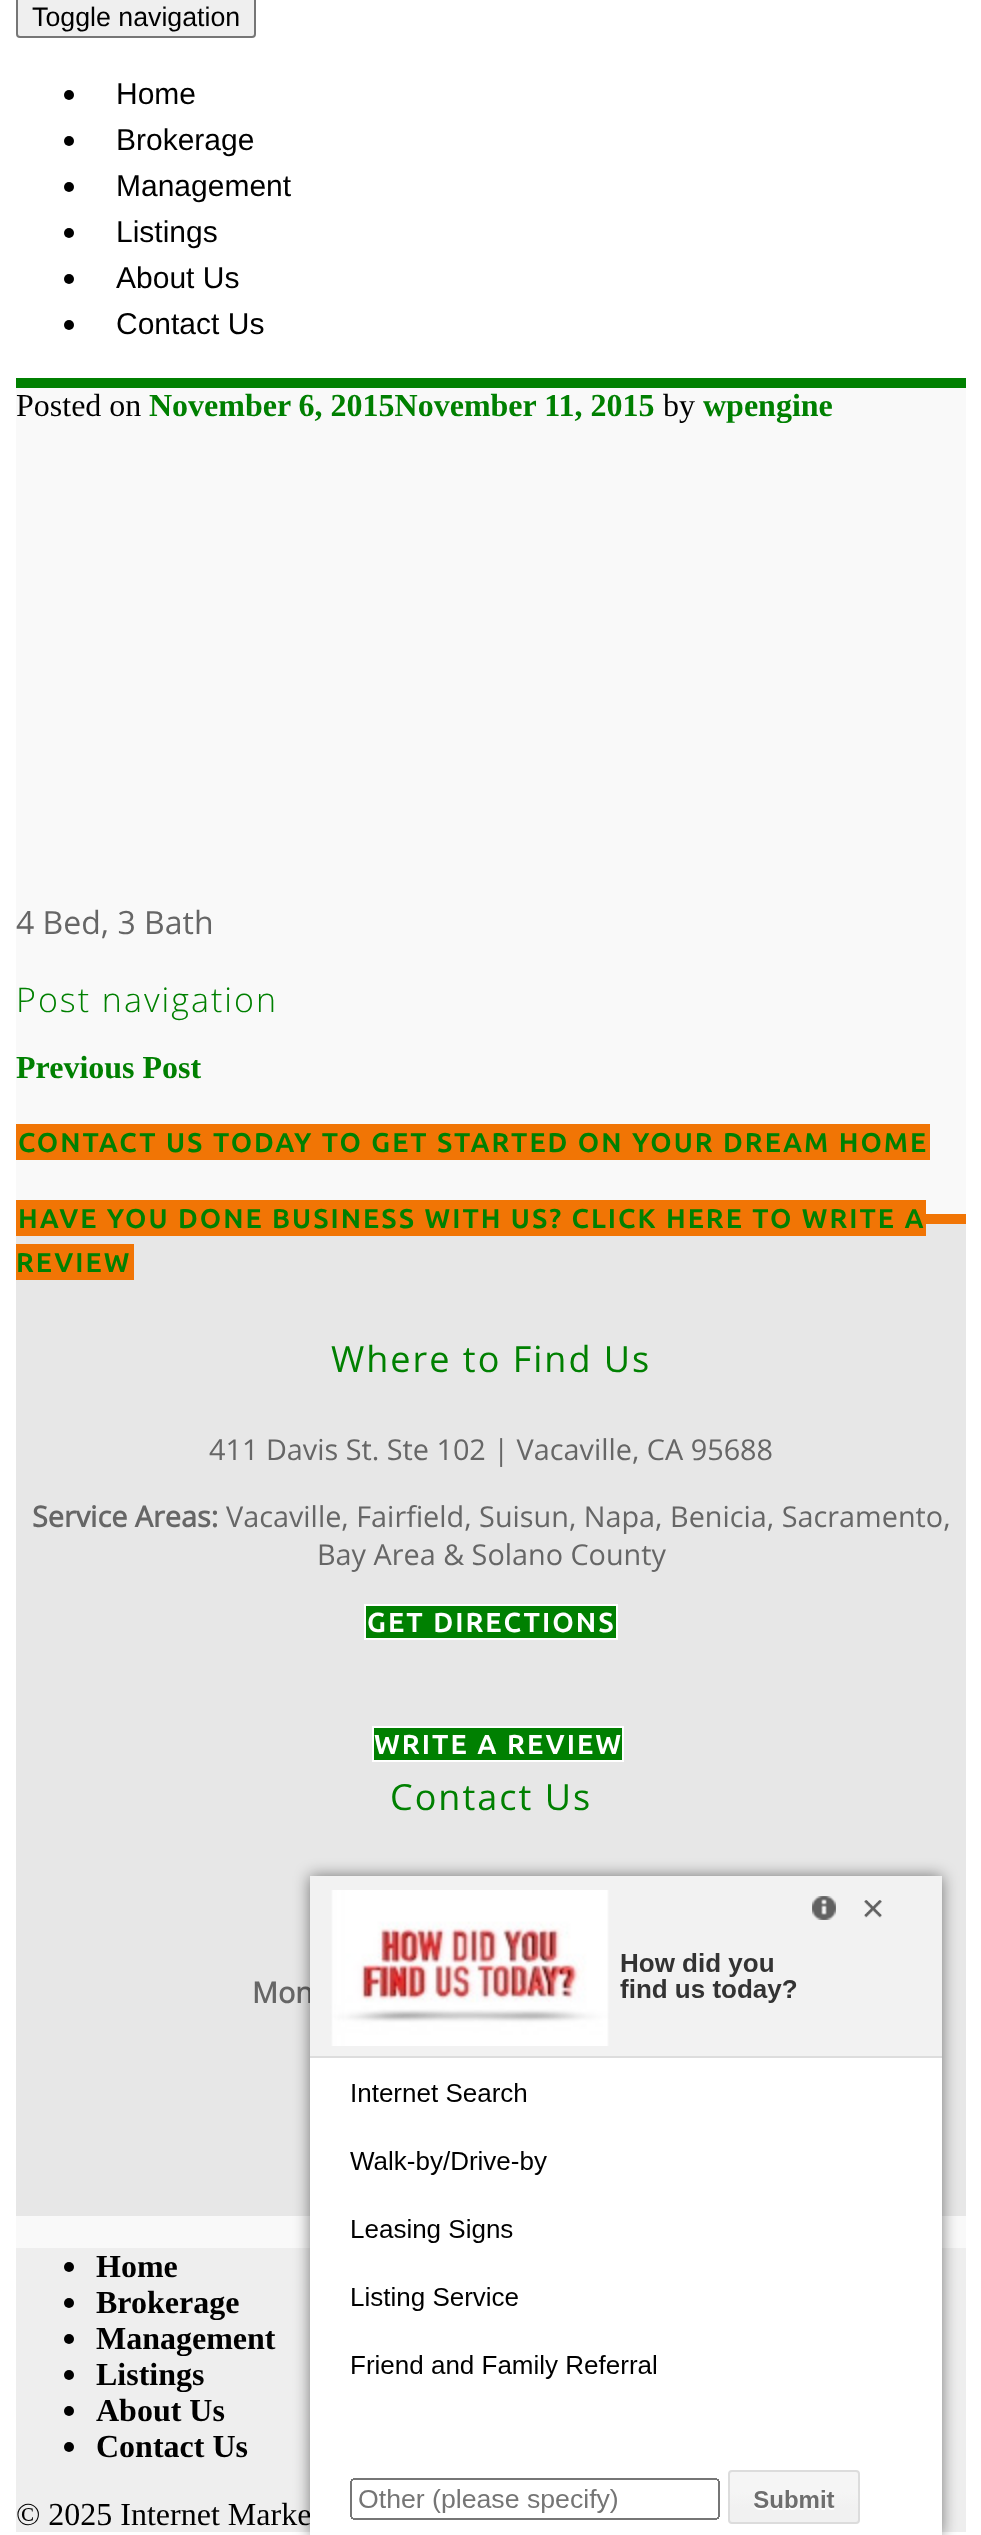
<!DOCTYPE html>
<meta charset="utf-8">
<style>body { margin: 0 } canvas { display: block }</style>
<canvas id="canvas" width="981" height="2535"></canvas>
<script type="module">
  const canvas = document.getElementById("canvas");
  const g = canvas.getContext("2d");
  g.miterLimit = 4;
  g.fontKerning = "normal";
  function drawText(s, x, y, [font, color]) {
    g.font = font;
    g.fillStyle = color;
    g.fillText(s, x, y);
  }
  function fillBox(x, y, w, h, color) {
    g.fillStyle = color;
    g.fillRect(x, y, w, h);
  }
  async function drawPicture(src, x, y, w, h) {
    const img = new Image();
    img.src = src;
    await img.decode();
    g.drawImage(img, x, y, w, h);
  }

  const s1 = ["26.75px Liberation Sans", "#000000"];
  const s2 = ["30px Liberation Sans", "#000000"];
  const s3 = ["32px Liberation Serif", "#000000"];
  const s4 = ["bold 32px Liberation Serif", "#008001"];
  const s5 = ["32px Open Sans", "#666666"];
  const s6 = ["300 34px Open Sans", "#008001"];
  const s7 = ["bold 27.2px Ubuntu", "#008001"];
  const s8 = ["36px Open Sans", "#008001"];
  const s9 = ["28.8px Open Sans", "#666666"];
  const s10 = ["bold 28.8px Open Sans", "#666666"];
  const s11 = ["bold 27.4px Ubuntu", "#FFFFFF"];
  const s12 = ["bold 32px Liberation Serif", "#000000"];

  fillBox(0, 0, 981, 2535, "#FFFFFF");
  fillBox(16, 388, 950, 1860, "#F9F9F9");
  fillBox(16, 378, 950, 10, "#008001");
  g.fillStyle = "#EFEFEF";
  g.beginPath();
  g.roundRect(17, -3, 238, 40, 3);
  g.fill();
  g.strokeStyle = "#767676";
  g.lineWidth = 2;
  g.stroke();
  drawText("Toggle navigation", 32, 26, s1);
  g.beginPath();
  g.arc(69, 95, 5, 0, Math.PI * 2);
  g.fill();
  drawText("Home", 116, 104, s2);
  g.beginPath();
  g.arc(69, 141, 5, 0, Math.PI * 2);
  g.fill();
  drawText("Brokerage", 116, 150, s2);
  g.beginPath();
  g.arc(69, 187, 5, 0, Math.PI * 2);
  g.fill();
  drawText("Management", 116, 196, s2);
  g.beginPath();
  g.arc(69, 233, 5, 0, Math.PI * 2);
  g.fill();
  drawText("Listings", 116, 242, s2);
  g.beginPath();
  g.arc(69, 279, 5, 0, Math.PI * 2);
  g.fill();
  drawText("About Us", 116, 288, s2);
  g.beginPath();
  g.arc(69, 325, 5, 0, Math.PI * 2);
  g.fill();
  drawText("Contact Us", 116, 334, s2);
  drawText("Posted on", 16, 416, s3);
  drawText("November 6, 2015November 11, 2015", 149, 416, s4);
  drawText("by", 663, 416, s3);
  drawText("wpengine", 703, 416, s4);
  drawText("4 Bed, 3 Bath", 16, 934, s5);
  g.letterSpacing = "2px";
  drawText("Post navigation", 16, 1012, s6);
  g.letterSpacing = "0px";
  drawText("Previous Post", 16, 1078, s4);
  fillBox(16, 1124, 914, 36, "#F17505");
  g.letterSpacing = "2px";
  drawText("CONTACT US TODAY TO GET STARTED ON YOUR DREAM HOME", 18, 1152, s7);
  fillBox(16, 1224, 950, 992, "#E7E7E7");
  fillBox(16, 1200, 910, 36, "#F17505");
  drawText("HAVE YOU DONE BUSINESS WITH US? CLICK HERE TO WRITE A", 18, 1228, s7);
  fillBox(16, 1244, 118, 36, "#F17505");
  drawText("REVIEW", 16, 1272, s7);
  fillBox(926, 1214, 40, 10, "#F17505");
  drawText("Where to Find Us", 331, 1372, s8);
  g.letterSpacing = "0px";
  drawText("411 Davis St. Ste 102 | Vacaville, CA 95688", 209, 1460, s9);
  drawText("Service Areas:", 32, 1527, s10);
  drawText("Vacaville, Fairfield, Suisun, Napa, Benicia, Sacramento,", 226, 1527, s9);
  drawText("Bay Area & Solano County", 317, 1565, s9);
  fillBox(366, 1606, 250, 32, "#008001");
  g.letterSpacing = "2px";
  drawText("GET DIRECTIONS", 367, 1632, s11);
  fillBox(364, 1604, 2, 36, "#FFFFFF");
  fillBox(366, 1604, 252, 2, "#FFFFFF");
  fillBox(616, 1604, 2, 36, "#FFFFFF");
  fillBox(366, 1638, 252, 2, "#FFFFFF");
  fillBox(374, 1728, 248, 32, "#008001");
  drawText("WRITE A REVIEW", 374, 1754, s11);
  fillBox(372, 1726, 2, 36, "#FFFFFF");
  fillBox(374, 1726, 250, 2, "#FFFFFF");
  fillBox(622, 1726, 2, 36, "#FFFFFF");
  fillBox(374, 1760, 250, 2, "#FFFFFF");
  drawText("Contact Us", 390, 1810, s8);
  g.letterSpacing = "0px";
  drawText("Mon", 252, 2003, s10);
  fillBox(16, 2248, 950, 284, "#EEEEEE");
  g.fillStyle = "#000000";
  g.beginPath();
  g.arc(69, 2267, 5, 0, Math.PI * 2);
  g.fill();
  drawText("Home", 96, 2277, s12);
  g.beginPath();
  g.arc(69, 2303, 5, 0, Math.PI * 2);
  g.fill();
  drawText("Brokerage", 96, 2313, s12);
  g.beginPath();
  g.arc(69, 2339, 5, 0, Math.PI * 2);
  g.fill();
  drawText("Management", 96, 2349, s12);
  g.beginPath();
  g.arc(69, 2375, 5, 0, Math.PI * 2);
  g.fill();
  drawText("Listings", 96, 2385, s12);
  g.beginPath();
  g.arc(69, 2411, 5, 0, Math.PI * 2);
  g.fill();
  drawText("About Us", 96, 2421, s12);
  g.beginPath();
  g.arc(69, 2447, 5, 0, Math.PI * 2);
  g.fill();
  drawText("Contact Us", 96, 2457, s12);
  drawText("© 2025 Internet Marke", 16, 2525, s3);
  g.save();
  g.beginPath();
  g.moveTo(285, 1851);
  g.lineTo(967, 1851);
  g.lineTo(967, 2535);
  g.lineTo(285, 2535);
  g.closePath();
  g.moveTo(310, 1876);
  g.lineTo(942, 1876);
  g.lineTo(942, 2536);
  g.lineTo(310, 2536);
  g.closePath();
  g.clip("evenodd");
  g.fillStyle = "rgba(0, 0, 0, 0.5)";
  g.filter = "blur(8px)";
  g.beginPath();
  g.rect(310, 1876, 632, 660);
  g.fill();
  g.filter = "none";
  g.restore();
  await drawPicture("pic1.png", 310, 1876, 632, 657);
</script>
